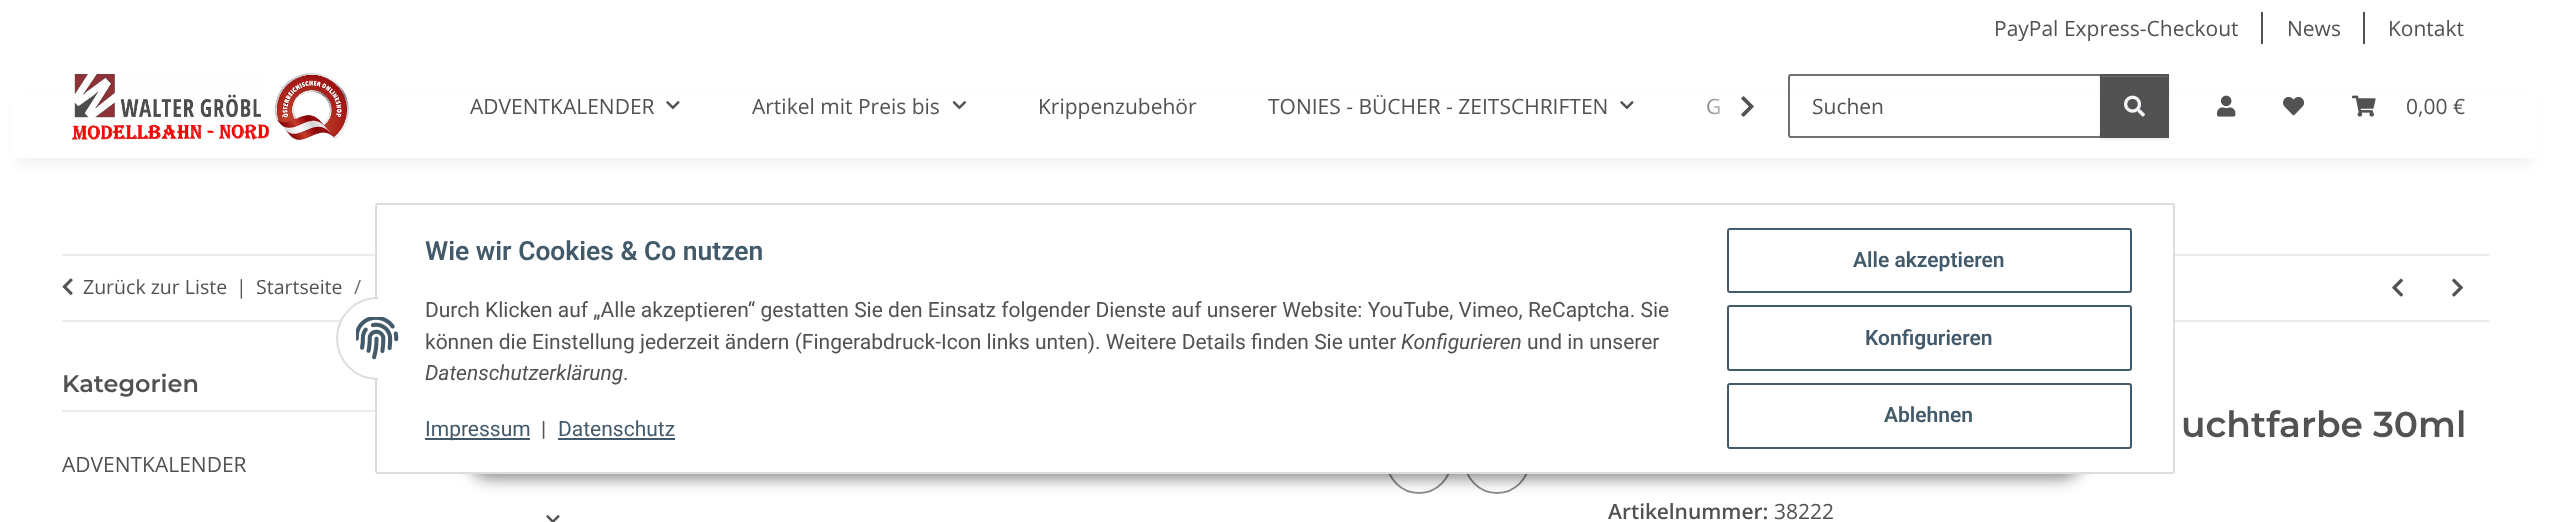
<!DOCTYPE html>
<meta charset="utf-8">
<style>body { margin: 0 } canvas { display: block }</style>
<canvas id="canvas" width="2550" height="522"></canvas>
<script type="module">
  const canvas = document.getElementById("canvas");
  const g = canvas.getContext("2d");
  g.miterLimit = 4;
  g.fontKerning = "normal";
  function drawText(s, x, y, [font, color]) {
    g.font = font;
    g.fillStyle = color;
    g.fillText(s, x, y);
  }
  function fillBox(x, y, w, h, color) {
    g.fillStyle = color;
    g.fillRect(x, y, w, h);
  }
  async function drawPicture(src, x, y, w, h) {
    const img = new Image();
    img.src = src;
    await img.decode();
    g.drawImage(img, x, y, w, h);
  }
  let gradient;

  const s1 = ["21px Open Sans", "#525252"];
  const s2 = ["600 26.4px Roboto", "#435A6B"];
  const s3 = ["21px Roboto", "#525252"];
  const s4 = ["italic 21px Roboto", "#525252"];
  const s5 = ["21px Roboto", "#435A6B"];
  const s6 = ["600 21px Roboto", "#435A6B"];
  const s7 = ["19.5px Open Sans", "#525252"];
  const s8 = ["19.5px Open Sans", "#707070"];
  const s9 = ["600 24px Montserrat", "#525252"];
  const s10 = ["600 36px Montserrat", "#525252"];
  const s11 = ["600 21px Open Sans", "#525252"];

  fillBox(0, 0, 2550, 522, "#FFFFFF");
  drawText("PayPal Express-Checkout", 1994, 36, s1);
  fillBox(2261, 12, 2, 32, "#525252");
  drawText("News", 2287, 36, s1);
  fillBox(2363, 12, 2, 32, "#525252");
  drawText("Kontakt", 2388, 36, s1);
  g.fillStyle = "rgba(0, 0, 0, 0.06)";
  g.filter = "blur(7px)";
  g.beginPath();
  g.rect(18, 98, 2514, 66);
  g.fill();
  g.filter = "none";
  fillBox(11, 91, 2528, 67, "#FFFFFF");
  await drawPicture("pic1.png", 71, 73, 278, 67);
  drawText("ADVENTKALENDER", 470, 114, s1);
  await drawPicture("pic2.png", 666, 101, 14, 9);
  drawText("Artikel mit Preis bis", 752, 114, s1);
  await drawPicture("pic3.png", 952, 101, 15, 9);
  drawText("Krippenzubehör", 1038, 114, s1);
  drawText("TONIES - BÜCHER - ZEITSCHRIFTEN", 1268, 114, s1);
  await drawPicture("pic2.png", 1620, 101, 14, 9);
  drawText("G", 1706, 114, s1);
  gradient = g.createLinearGradient(1692, 107, 1764, 107);
  gradient.addColorStop(0, "rgba(255, 255, 255, 0.01)");
  gradient.addColorStop(0.7, "#FFFFFF");
  g.fillStyle = gradient;
  g.fillRect(1707, 98, 14, 17);
  await drawPicture("pic4.png", 1741, 96, 13, 21);
  g.beginPath();
  g.roundRect(1789, 75, 312, 62, 2);
  g.strokeStyle = "#707070";
  g.lineWidth = 2;
  g.stroke();
  drawText("Suchen", 1812, 114, s1);
  g.fillStyle = "rgba(0, 0, 0, 0.07)";
  g.filter = "blur(1px)";
  g.beginPath();
  g.rect(2100, 75, 69, 65);
  g.fill();
  g.filter = "none";
  fillBox(2102, 77, 65, 59, "#525252");
  fillBox(2102, 76, 66, 1, "#6C6C6C");
  g.strokeStyle = "#525252";
  g.strokeRect(2101, 75, 67, 62);
  await drawPicture("pic5.png", 2124, 95, 21, 22);
  await drawPicture("pic6.png", 2217, 95, 19, 22);
  await drawPicture("pic7.png", 2283, 96, 21, 20);
  await drawPicture("pic8.png", 2352, 95, 24, 22);
  drawText("0,00 €", 2406, 114, s1);
  g.beginPath();
  g.arc(1419, 461, 32, 0, Math.PI * 2);
  g.strokeStyle = "#8D8D8D";
  g.stroke();
  g.beginPath();
  g.arc(1497, 461, 32, 0, Math.PI * 2);
  g.stroke();
  g.fillStyle = "rgba(0, 0, 0, 0.45)";
  g.filter = "blur(7.5px)";
  g.beginPath();
  g.roundRect(467, 431, 1617, 48, 24);
  g.fill();
  g.filter = "none";
  fillBox(62, 254, 2427, 2, "#EBEBEB");
  fillBox(62, 320, 2427, 2, "#EBEBEB");
  g.fillStyle = "#FFFFFF";
  g.beginPath();
  g.roundRect(376, 204, 1798, 269, 2);
  g.fill();
  g.strokeStyle = "#DDDDDD";
  g.stroke();
  g.beginPath();
  g.arc(377.5, 338.5, 40.5, 0, Math.PI * 2);
  g.fill();
  g.stroke();
  fillBox(378, 297, 41, 83, "#FFFFFF");
  await drawPicture("pic9.png", 356, 317, 43, 43);
  drawText("Wie wir Cookies & Co nutzen", 425, 260, s2);
  drawText("Durch Klicken auf „Alle akzeptieren“ gestatten Sie den Einsatz folgender Dienste auf unserer Website: YouTube, Vimeo, ReCaptcha. Sie", 425, 317, s3);
  drawText("können die Einstellung jederzeit ändern (Fingerabdruck-Icon links unten). Weitere Details finden Sie unter", 425, 349, s3);
  drawText("Konfigurieren", 1401, 349, s4);
  drawText("und in unserer", 1527, 349, s3);
  drawText("Datenschutzerklärung", 425, 380, s4);
  drawText(".", 623, 380, s3);
  fillBox(425, 438, 105, 2, "#435A6B");
  drawText("Impressum", 425, 436, s5);
  drawText("|", 541, 436, s3);
  drawText("Datenschutz", 558, 436, s5);
  fillBox(558, 438, 117, 2, "#435A6B");
  g.beginPath();
  g.roundRect(1728, 229, 403, 63, 2);
  g.strokeStyle = "#435A6B";
  g.stroke();
  drawText("Alle akzeptieren", 1853, 267, s6);
  g.beginPath();
  g.roundRect(1728, 306, 403, 64, 2);
  g.stroke();
  drawText("Konfigurieren", 1865, 345, s6);
  g.beginPath();
  g.roundRect(1728, 384, 403, 64, 2);
  g.stroke();
  drawText("Ablehnen", 1884, 422, s6);
  await drawPicture("pic10.png", 62, 278, 11, 17);
  drawText("Zurück zur Liste", 83, 294, s7);
  drawText("|", 236, 294, s7);
  drawText("Startseite", 256, 294, s7);
  drawText("/", 354, 294, s8);
  await drawPicture("pic11.png", 2392, 278, 11, 19);
  await drawPicture("pic12.png", 2452, 278, 11, 19);
  fillBox(62, 410, 313, 2, "#EBEBEB");
  drawText("Kategorien", 62, 392, s9);
  drawText("ADVENTKALENDER", 62, 472, s1);
  await drawPicture("pic13.png", 546, 515, 14, 7);
  drawText("uchtfarbe 30ml", 2181, 437, s10);
  drawText("Artikelnummer:", 1608, 519, s11);
  drawText("38222", 1774, 519, s1);
</script>
